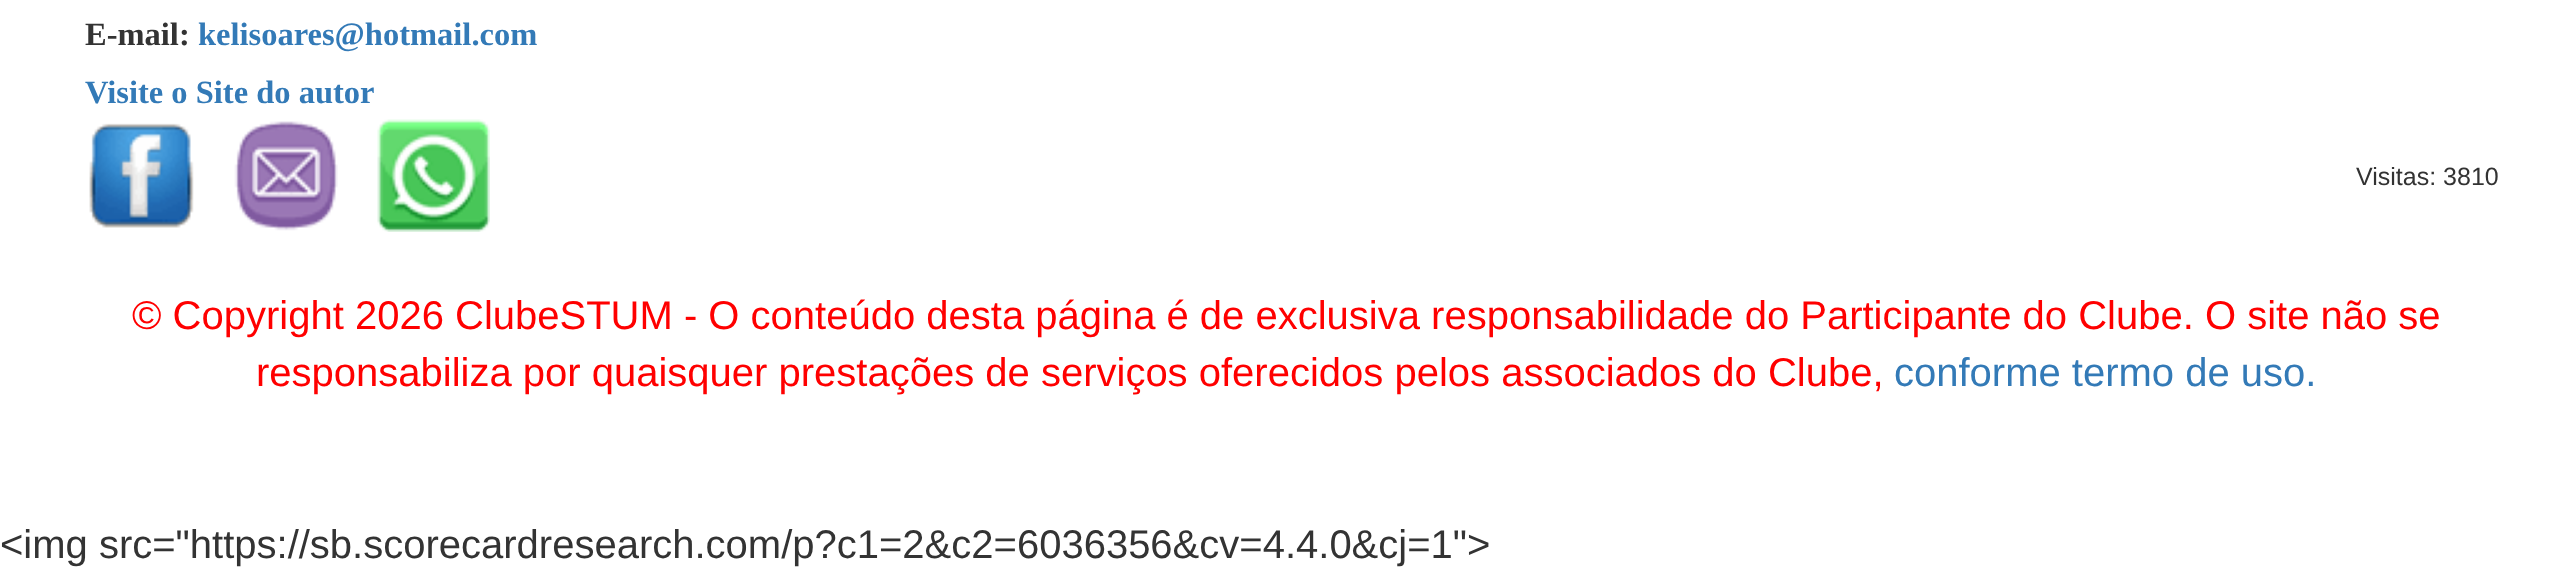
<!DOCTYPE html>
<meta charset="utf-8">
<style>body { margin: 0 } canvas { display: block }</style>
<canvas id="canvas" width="2572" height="568"></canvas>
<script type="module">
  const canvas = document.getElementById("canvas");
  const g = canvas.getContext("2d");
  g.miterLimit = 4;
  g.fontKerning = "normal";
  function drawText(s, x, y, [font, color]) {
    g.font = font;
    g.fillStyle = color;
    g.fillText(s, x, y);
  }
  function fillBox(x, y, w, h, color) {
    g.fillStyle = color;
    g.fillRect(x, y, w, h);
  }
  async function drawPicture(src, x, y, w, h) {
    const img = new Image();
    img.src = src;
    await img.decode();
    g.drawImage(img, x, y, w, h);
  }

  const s1 = ["bold 32.5px Liberation Serif", "#333333"];
  const s2 = ["bold 32.5px Liberation Serif", "#337AB7"];
  const s3 = ["25px Liberation Sans", "#333333"];
  const s4 = ["40px Liberation Sans", "#FF0000"];
  const s5 = ["40px Liberation Sans", "#337AB7"];
  const s6 = ["40px Liberation Sans", "#333333"];

  fillBox(0, 0, 2572, 568, "#FFFFFF");
  drawText("E-mail:", 85, 45, s1);
  drawText("kelisoares@hotmail.com", 198, 45, s2);
  drawText("Visite o Site do autor", 85, 103, s2);
  await drawPicture("pic1.png", 89, 123, 105, 105);
  await drawPicture("pic2.png", 234, 121, 104, 110);
  await drawPicture("pic3.png", 377, 119, 113, 113);
  drawText("Visitas: 3810", 2356, 185, s3);
  drawText("© Copyright 2026 ClubeSTUM - O conteúdo desta página é de exclusiva responsabilidade do Participante do Clube. O site não se", 132, 329, s4);
  drawText("responsabiliza por quaisquer prestações de serviços oferecidos pelos associados do Clube,", 256, 386, s4);
  drawText("conforme termo de uso.", 1894, 386, s5);
  drawText("<img src=\"https://sb.scorecardresearch.com/p?c1=2&c2=6036356&cv=4.4.0&cj=1\">", 0, 558, s6);
</script>
